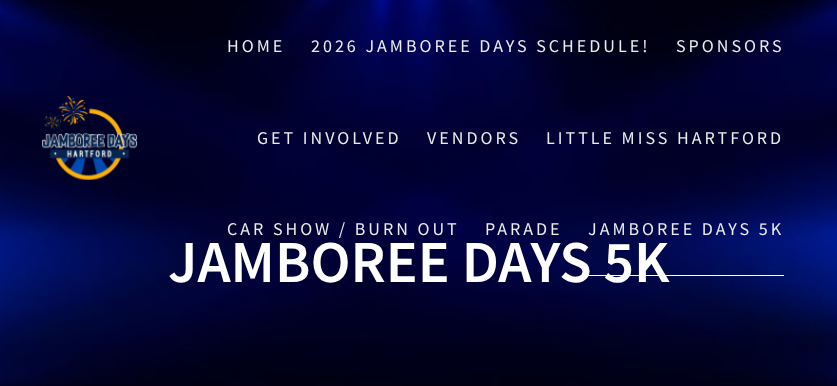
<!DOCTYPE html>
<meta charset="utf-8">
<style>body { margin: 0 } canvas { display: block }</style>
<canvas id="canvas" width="837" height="386"></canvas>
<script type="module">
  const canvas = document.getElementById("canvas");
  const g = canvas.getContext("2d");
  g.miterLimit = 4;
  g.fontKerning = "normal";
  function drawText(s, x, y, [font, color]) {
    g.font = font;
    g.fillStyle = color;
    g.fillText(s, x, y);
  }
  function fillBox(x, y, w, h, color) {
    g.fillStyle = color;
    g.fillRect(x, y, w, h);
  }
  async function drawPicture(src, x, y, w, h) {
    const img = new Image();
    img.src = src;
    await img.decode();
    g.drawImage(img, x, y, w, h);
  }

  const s1 = ["18px Source Sans Pro", "#EDEDED"];
  const s2 = ["600 59.5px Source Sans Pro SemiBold", "#FFFFFF"];

  fillBox(0, 0, 837, 386, "#FFFFFF");
  await drawPicture("pic2.png", 0, 0, 837, 386);
  await drawPicture("pic1.png", 42, 96, 96, 84);
  g.letterSpacing = "3px";
  drawText("HOME", 227, 52, s1);
  drawText("2026 JAMBOREE DAYS SCHEDULE!", 311, 52, s1);
  drawText("SPONSORS", 676, 52, s1);
  drawText("GET INVOLVED", 257, 144, s1);
  drawText("VENDORS", 427, 144, s1);
  drawText("LITTLE MISS HARTFORD", 546, 144, s1);
  drawText("CAR SHOW / BURN OUT", 227, 235, s1);
  drawText("PARADE", 485, 235, s1);
  fillBox(588, 275, 196, 1, "#FFFFFF");
  drawText("JAMBOREE DAYS 5K", 588, 235, s1);
  g.letterSpacing = "0px";
  drawText("JAMBOREE DAYS 5K", 168, 282, s2);
</script>
